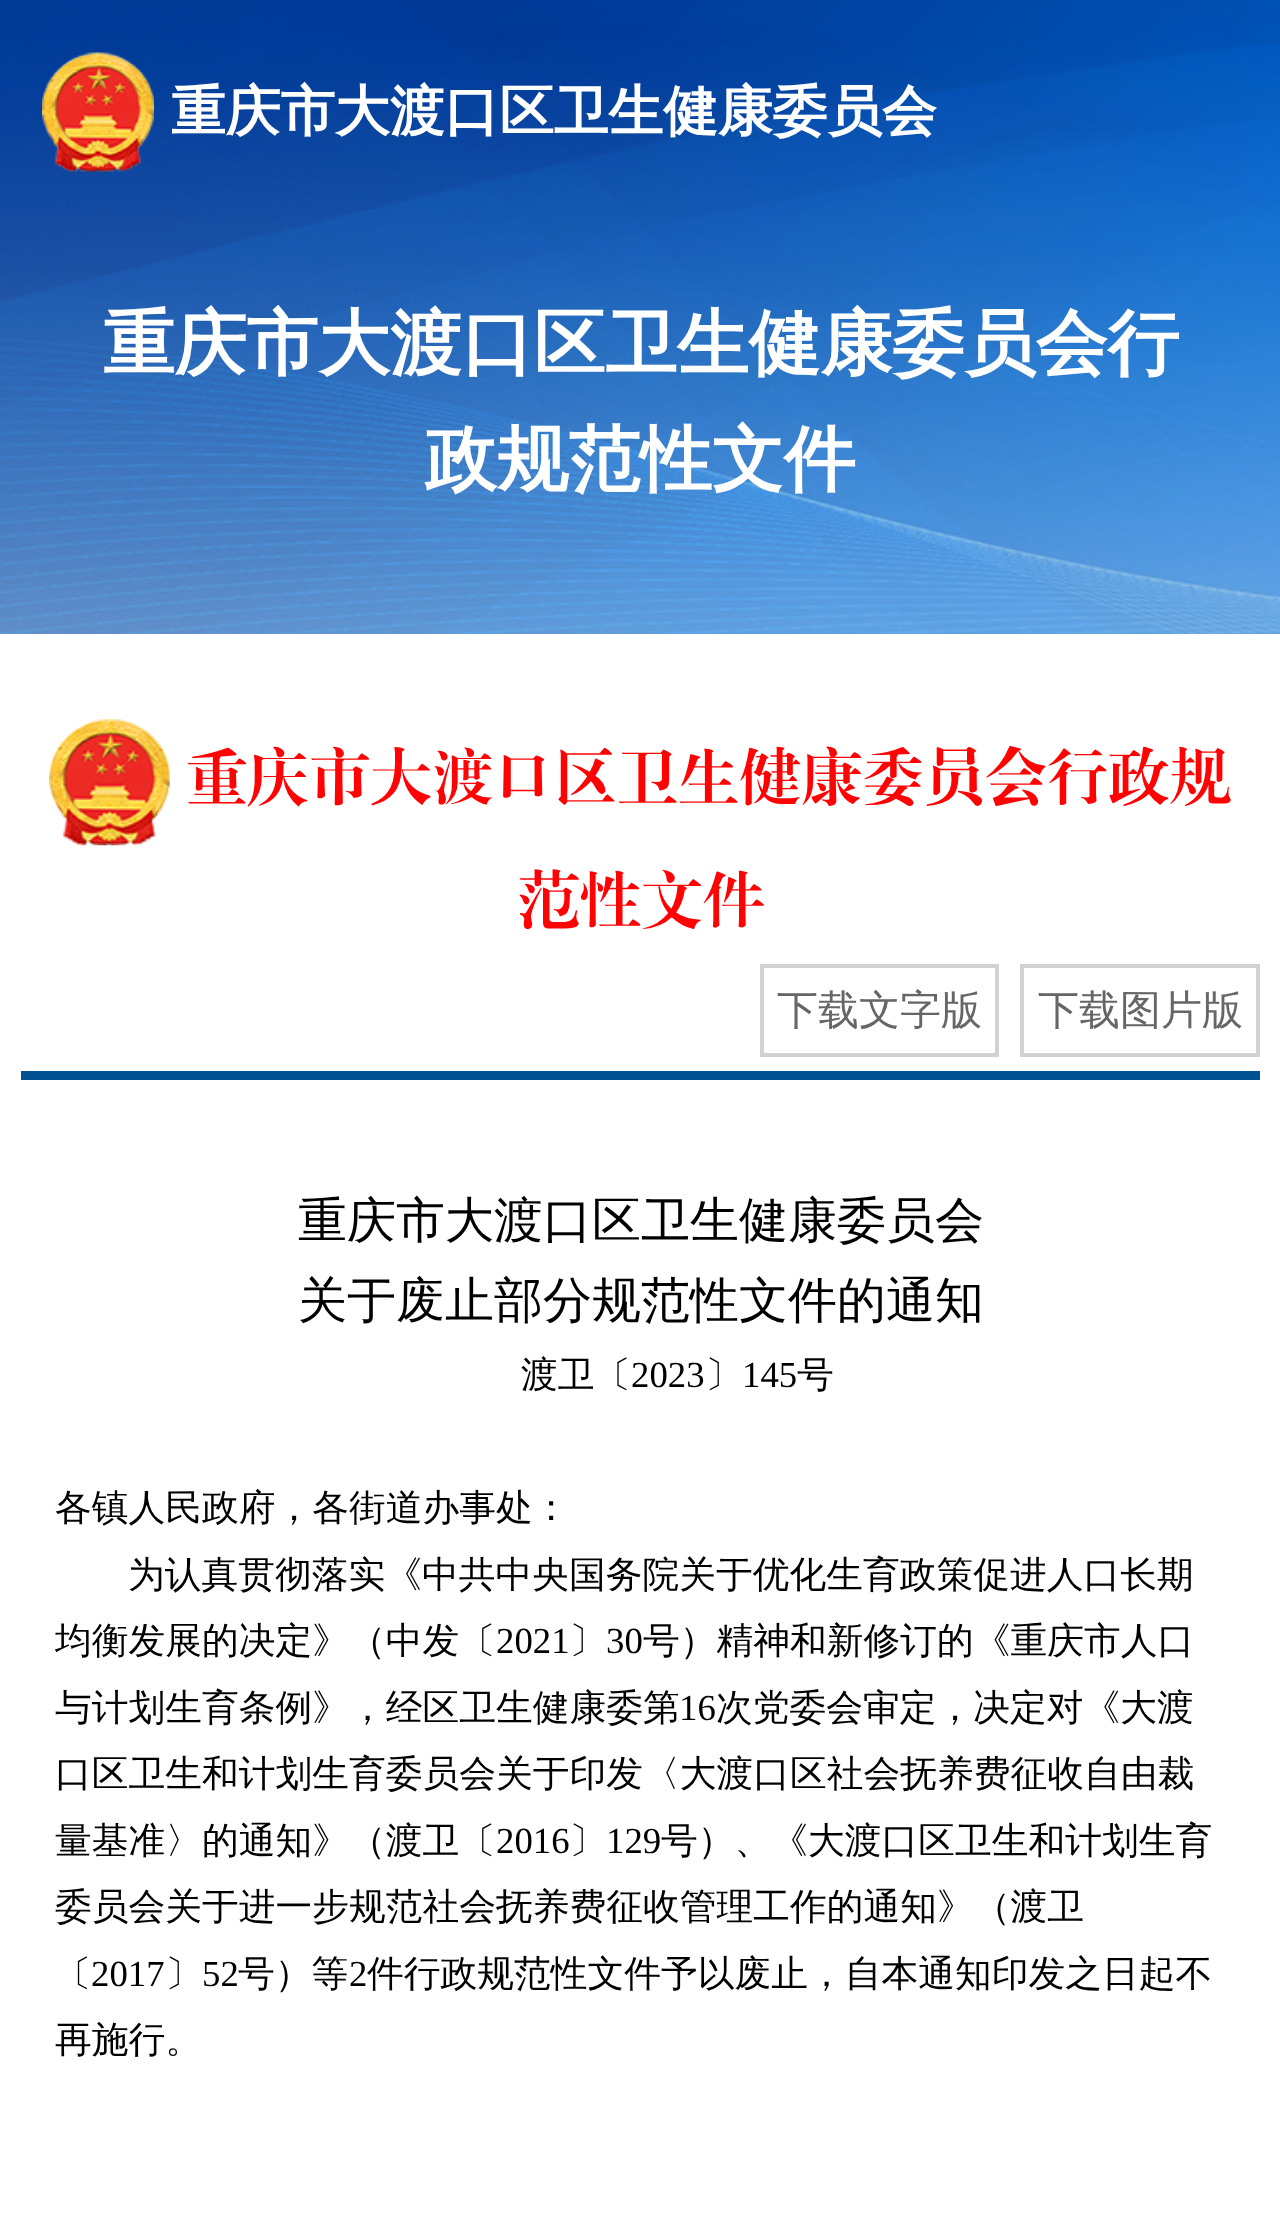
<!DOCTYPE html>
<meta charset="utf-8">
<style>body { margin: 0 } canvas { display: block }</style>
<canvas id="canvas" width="1280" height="2215"></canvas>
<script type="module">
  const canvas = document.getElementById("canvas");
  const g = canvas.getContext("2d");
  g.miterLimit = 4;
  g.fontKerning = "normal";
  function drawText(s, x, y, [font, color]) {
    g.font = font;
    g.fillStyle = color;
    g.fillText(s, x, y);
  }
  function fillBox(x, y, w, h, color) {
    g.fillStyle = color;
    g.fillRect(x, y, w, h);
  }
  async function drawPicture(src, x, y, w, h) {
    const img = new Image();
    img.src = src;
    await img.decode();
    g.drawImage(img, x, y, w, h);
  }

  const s1 = ["bold 54.7px WenQuanYi Zen Hei", "#FFFFFF"];
  const s2 = ["bold 71.75px WenQuanYi Zen Hei", "#FFFFFF"];
  const s3 = ["61.5px 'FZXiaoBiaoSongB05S'", "#FF0203"];
  const s4 = ["500 41px WenQuanYi Zen Hei", "#666666"];
  const s5 = ["500 49px WenQuanYi Zen Hei", "#000000"];
  const s6 = ["500 36.75px WenQuanYi Zen Hei", "#000000"];
  const s7 = ["36.75px Liberation Serif", "#000000"];

  fillBox(0, 0, 1280, 2215, "#F5F6F7");
  await drawPicture("pic1.png", 0, 0, 1280, 634);
  await drawPicture("pic2.png", 42, 52, 112, 120);
  drawText("重庆市大渡口区卫生健康委员会", 171, 130, s1);
  drawText("重庆市大渡口区卫生健康委员会行", 103, 368, s2);
  drawText("政规范性文件", 425, 484, s2);
  fillBox(0, 634, 1280, 1581, "#FFFFFF");
  fillBox(21, 1071, 1239, 9, "#015293");
  await drawPicture("pic3.png", 49, 719, 121, 127);
  drawText("重庆市大渡口区卫生健康委员会行政规", 186, 798, s3);
  drawText("范性文件", 518, 921, s3);
  g.strokeStyle = "#D2D2D2";
  g.lineWidth = 4;
  g.strokeRect(762, 966, 235, 89);
  drawText("下载文字版", 777, 1024, s4);
  g.strokeRect(1022, 966, 236, 89);
  drawText("下载图片版", 1038, 1024, s4);
  drawText("重庆市大渡口区卫生健康委员会", 298, 1237, s5);
  drawText("关于废止部分规范性文件的通知", 298, 1317, s5);
  drawText("渡卫〔", 521, 1387, s6);
  drawText("2023", 631, 1387, s7);
  drawText("〕", 705, 1387, s6);
  drawText("145", 742, 1387, s7);
  drawText("号", 797, 1387, s6);
  drawText("各镇人民政府，各街道办事处：", 55, 1520, s6);
  drawText("为认真贯彻落实《中共中央国务院关于优化生育政策促进人口长期", 128, 1587, s6);
  drawText("均衡发展的决定》（中发〔", 55, 1653, s6);
  drawText("2021", 496, 1653, s7);
  drawText("〕", 569, 1653, s6);
  drawText("30", 606, 1653, s7);
  drawText("号）精神和新修订的《重庆市人口", 643, 1653, s6);
  drawText("与计划生育条例》，经区卫生健康委第", 55, 1720, s6);
  drawText("16", 679, 1720, s7);
  drawText("次党委会审定，决定对《大渡", 716, 1720, s6);
  drawText("口区卫生和计划生育委员会关于印发〈大渡口区社会抚养费征收自由裁", 55, 1786, s6);
  drawText("量基准〉的通知》（渡卫〔", 55, 1853, s6);
  drawText("2016", 496, 1853, s7);
  drawText("〕", 569, 1853, s6);
  drawText("129", 606, 1853, s7);
  drawText("号）、《大渡口区卫生和计划生育", 661, 1853, s6);
  drawText("委员会关于进一步规范社会抚养费征收管理工作的通知》（渡卫", 55, 1919, s6);
  drawText("〔", 55, 1986, s6);
  drawText("2017", 91, 1986, s7);
  drawText("〕", 165, 1986, s6);
  drawText("52", 202, 1986, s7);
  drawText("号）等", 238, 1986, s6);
  drawText("2", 349, 1986, s7);
  drawText("件行政规范性文件予以废止，自本通知印发之日起不", 367, 1986, s6);
  drawText("再施行。", 55, 2052, s6);
</script>
